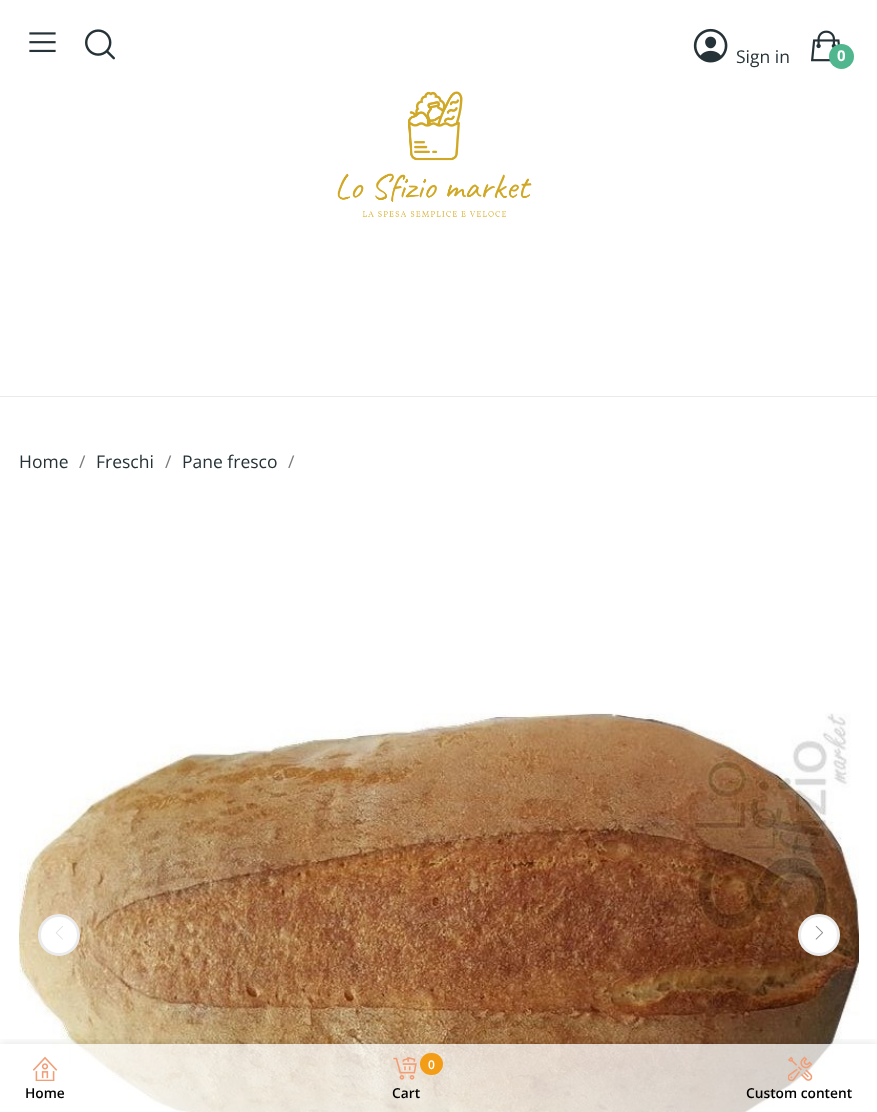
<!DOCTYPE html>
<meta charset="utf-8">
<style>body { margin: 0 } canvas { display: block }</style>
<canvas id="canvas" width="877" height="1112"></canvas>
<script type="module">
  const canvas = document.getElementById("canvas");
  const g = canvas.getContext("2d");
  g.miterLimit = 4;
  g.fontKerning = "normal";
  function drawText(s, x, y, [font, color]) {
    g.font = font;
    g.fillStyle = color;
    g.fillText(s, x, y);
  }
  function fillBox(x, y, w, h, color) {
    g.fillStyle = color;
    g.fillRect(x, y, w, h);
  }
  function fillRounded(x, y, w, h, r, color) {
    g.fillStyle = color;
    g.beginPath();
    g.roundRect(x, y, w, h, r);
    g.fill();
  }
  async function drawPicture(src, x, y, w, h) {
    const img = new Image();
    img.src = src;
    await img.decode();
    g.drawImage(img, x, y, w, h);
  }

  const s1 = ["17.5px Open Sans", "#253237"];
  const s2 = ["bold 15px Open Sans", "#FFFFFF"];
  const s3 = ["17.5px Open Sans", "#7A7A7A"];
  const s4 = ["600 13.75px Open Sans", "#000000"];
  const s5 = ["600 12px Open Sans", "#FFFFFF"];

  fillBox(0, 0, 877, 1112, "#FFFFFF");
  fillBox(0, 396, 877, 1, "#EBEBEB");
  await drawPicture("pic1.png", 29, 32, 27, 21);
  await drawPicture("pic2.png", 85, 29, 30, 31);
  await drawPicture("pic3.png", 693, 28, 35, 35);
  drawText("Sign in", 736, 63, s1);
  await drawPicture("pic4.png", 811, 30, 29, 32);
  g.fillStyle = "#4FB68D";
  g.beginPath();
  g.arc(841.5, 56.5, 12.5, 0, Math.PI * 2);
  g.fill();
  drawText("0", 837, 61, s2);
  await drawPicture("pic5.png", 337, 91, 195, 126);
  drawText("Home", 19, 468, s1);
  drawText("/", 79, 468, s3);
  drawText("Freschi", 96, 468, s1);
  drawText("/", 165, 468, s3);
  drawText("Pane fresco", 182, 468, s1);
  drawText("/", 288, 468, s3);
  await drawPicture("pic6.png", 19, 712, 840, 400);
  g.fillStyle = "#FFFFFF";
  g.beginPath();
  g.arc(59, 935, 19.5, 0, Math.PI * 2);
  g.fill();
  g.strokeStyle = "#EBEBEB";
  g.lineWidth = 3;
  g.stroke();
  await drawPicture("pic7.png", 55, 926, 8, 14);
  g.beginPath();
  g.arc(819, 935, 19.5, 0, Math.PI * 2);
  g.fill();
  g.stroke();
  await drawPicture("pic8.png", 815, 925, 8, 15);
  g.save();
  g.beginPath();
  g.rect(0, 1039, 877, 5);
  g.clip();
  g.fillStyle = "rgba(0, 0, 0, 0.12)";
  g.filter = "blur(5.5px)";
  g.beginPath();
  g.rect(0, 1044, 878, 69);
  g.fill();
  g.filter = "none";
  g.restore();
  fillBox(70, 1044, 764, 68, "rgba(255, 255, 255, 0.75)");
  await drawPicture("pic9.png", 33, 1056, 25, 25);
  drawText("Home", 25, 1098, s4);
  await drawPicture("pic10.png", 393, 1056, 24, 24);
  fillRounded(420, 1053, 23, 22, 11, "#F39C16");
  drawText("0", 428, 1069, s5);
  drawText("Cart", 392, 1098, s4);
  await drawPicture("pic11.png", 788, 1056, 25, 25);
  drawText("Custom content", 746, 1098, s4);
</script>
